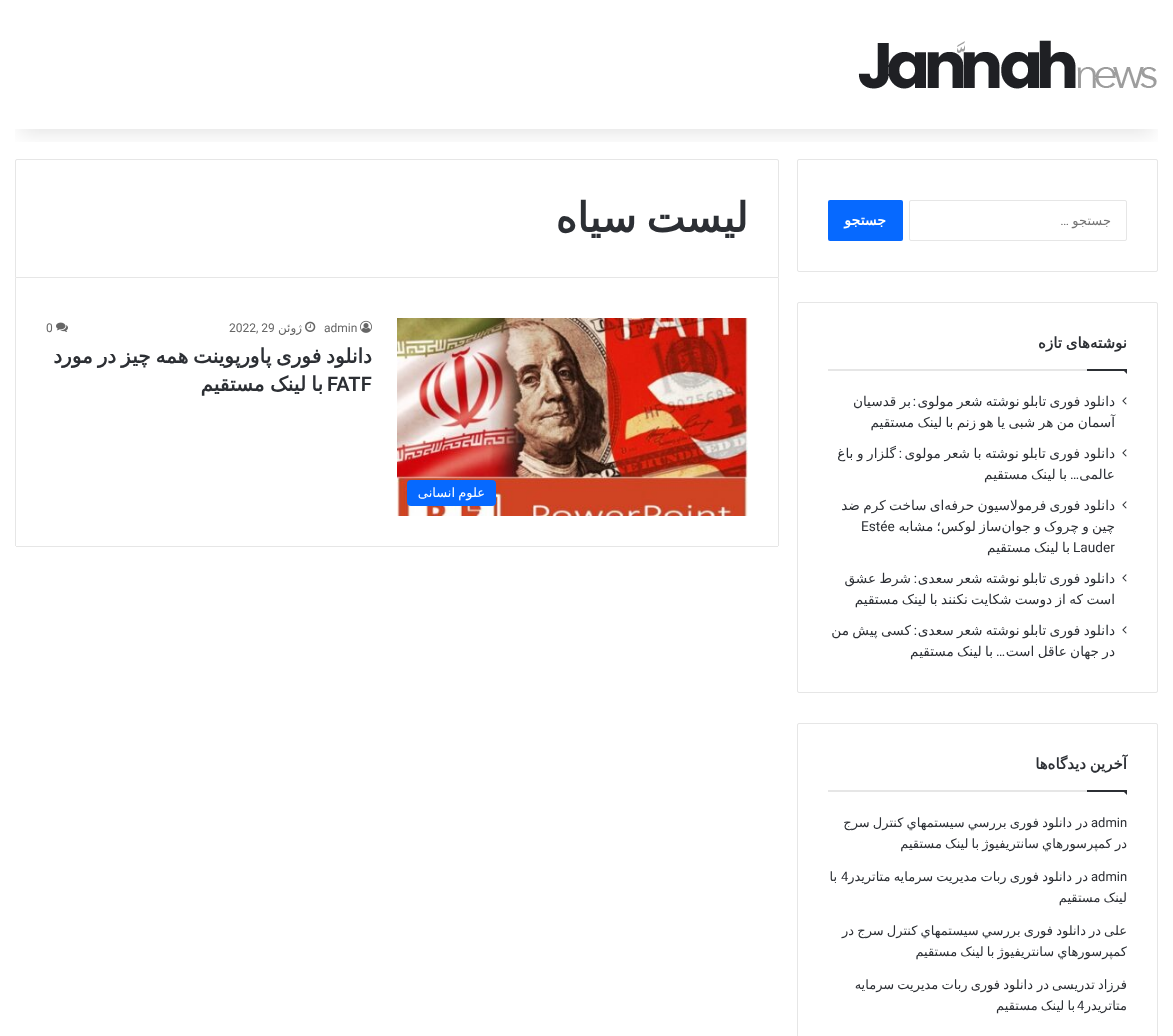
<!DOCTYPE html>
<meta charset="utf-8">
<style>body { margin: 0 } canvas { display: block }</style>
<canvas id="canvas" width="1173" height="1036"></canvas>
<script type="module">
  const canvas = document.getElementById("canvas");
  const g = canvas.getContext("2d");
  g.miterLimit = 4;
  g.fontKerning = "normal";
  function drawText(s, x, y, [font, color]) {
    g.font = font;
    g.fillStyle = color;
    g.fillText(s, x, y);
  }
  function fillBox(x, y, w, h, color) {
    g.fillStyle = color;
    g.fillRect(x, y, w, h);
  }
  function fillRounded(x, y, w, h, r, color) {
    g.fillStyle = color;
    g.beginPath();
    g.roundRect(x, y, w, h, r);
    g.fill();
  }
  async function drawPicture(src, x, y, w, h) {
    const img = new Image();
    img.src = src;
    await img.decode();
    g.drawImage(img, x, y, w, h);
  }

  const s1 = ["13px DejaVu Sans", "#757575"];
  const s2 = ["13px Roboto", "#757575"];
  const s3 = ["bold 14px DejaVu Sans", "#FFFFFF"];
  const s4 = ["bold 15px DejaVu Sans", "#2C2F34"];
  const s5 = ["13.65px DejaVu Sans", "#2C2F34"];
  const s6 = ["13.65px Roboto", "#2C2F34"];
  const s7 = ["13px Roboto", "#2C2F34"];
  const s8 = ["13px DejaVu Sans", "#2C2F34"];
  const s9 = ["bold 41px DejaVu Sans", "#2C2F34"];
  const s10 = ["12px Roboto", "#666666"];
  const s11 = ["12px DejaVu Sans", "#666666"];
  const s12 = ["bold 20px DejaVu Sans", "#2C2F34"];
  const s13 = ["600 20px Roboto", "#2C2F34"];
  const s14 = ["13px DejaVu Sans", "#FFFFFF"];

  fillBox(0, 0, 1173, 1036, "#FFFFFF");
  g.beginPath();
  g.roundRect(797.5, 159.5, 360, 112, 1.5);
  g.strokeStyle = "#E6E6E6";
  g.stroke();
  g.beginPath();
  g.roundRect(15.5, 159.5, 763, 118, [1.5, 1.5, 0, 0]);
  g.stroke();
  g.save();
  g.beginPath();
  g.rect(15, 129, 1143, 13);
  g.clip();
  g.fillStyle = "rgba(0, 0, 0, 0.1)";
  g.filter = "blur(10px)";
  g.beginPath();
  g.rect(20, 45, 1133, 89);
  g.fill();
  g.filter = "none";
  g.restore();
  await drawPicture("pic1.png", 858, 40, 299, 49);
  g.beginPath();
  g.roundRect(909.5, 200.5, 217, 40, 1.5);
  g.stroke();
  g.direction = "rtl";
  drawText("جستجو", 1111, 225, s1);
  drawText("…", 1069, 225, s2);
  fillRounded(828, 200, 75, 41, 2, "#0669FF");
  drawText("جستجو", 886, 225, s3);
  g.beginPath();
  g.roundRect(797.5, 302.5, 360, 390, 1.5);
  g.stroke();
  fillBox(828, 369, 259, 2, "#E6E6E6");
  g.wordSpacing = "-1px";
  drawText("نوشته‌های تازه", 1127, 348, s4);
  g.beginPath();
  g.moveTo(1122, 369);
  g.lineTo(1127, 369);
  g.lineTo(1127, 374);
  g.closePath();
  g.fill();
  fillBox(1087, 369, 40, 2, "#2C2F34");
  await drawPicture("pic2.png", 1122, 397, 5, 8);
  drawText("دانلود فوری تابلو نوشته شعر مولوی", 1115, 406, s5);
  g.wordSpacing = "0px";
  drawText(":", 916, 406, s6);
  g.wordSpacing = "-1px";
  drawText("بر قدسیان", 911, 406, s5);
  drawText("آسمان من هر شبی یا هو زنم با لینک مستقیم", 1115, 427, s5);
  await drawPicture("pic2.png", 1122, 449, 5, 8);
  g.wordSpacing = "-0.75px";
  drawText("دانلود فوری تابلو نوشته با شعر مولوی", 1115, 458, s5);
  g.wordSpacing = "0px";
  drawText(":", 902, 458, s6);
  g.wordSpacing = "-0.75px";
  drawText("گلزار و باغ", 896, 458, s5);
  g.wordSpacing = "0px";
  drawText("عالمی", 1115, 479, s5);
  drawText("…", 1079, 479, s6);
  g.wordSpacing = "-1px";
  drawText("با لینک مستقیم", 1067, 479, s5);
  await drawPicture("pic2.png", 1122, 501, 5, 8);
  drawText("دانلود فوری فرمولاسیون حرفه‌ای ساخت کرم ضد", 1115, 510, s5);
  drawText("چین و چروک و جوان‌ساز لوکس؛ مشابه", 1115, 531, s5);
  g.wordSpacing = "0px";
  g.direction = "ltr";
  drawText("Estée", 861, 531, s6);
  drawText("Lauder", 1073, 552, s6);
  g.wordSpacing = "-1px";
  g.direction = "rtl";
  drawText("با لینک مستقیم", 1070, 552, s5);
  await drawPicture("pic2.png", 1122, 574, 5, 8);
  drawText("دانلود فوری تابلو نوشته شعر سعدی", 1115, 583, s5);
  g.wordSpacing = "0px";
  drawText(":", 917, 583, s6);
  g.wordSpacing = "-1px";
  drawText("شرط عشق", 911, 583, s5);
  drawText("است که از دوست شکایت نکنند با لینک مستقیم", 1115, 604, s5);
  await drawPicture("pic2.png", 1122, 626, 5, 8);
  drawText("دانلود فوری تابلو نوشته شعر سعدی", 1115, 635, s5);
  g.wordSpacing = "0px";
  drawText(":", 917, 635, s6);
  g.wordSpacing = "-1px";
  drawText("کسی پیش من", 911, 635, s5);
  drawText("در جهان عاقل است", 1115, 656, s5);
  g.wordSpacing = "0px";
  drawText("…", 1005, 656, s6);
  g.wordSpacing = "-1px";
  drawText("با لینک مستقیم", 993, 656, s5);
  g.beginPath();
  g.roundRect(797.5, 723.5, 360, 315, 1.5);
  g.stroke();
  fillBox(828, 790, 259, 2, "#E6E6E6");
  drawText("آخرین دیدگاه‌ها", 1127, 769, s4);
  g.beginPath();
  g.moveTo(1122, 790);
  g.lineTo(1127, 790);
  g.lineTo(1127, 795);
  g.closePath();
  g.fill();
  fillBox(1087, 790, 40, 2, "#2C2F34");
  g.wordSpacing = "0px";
  g.direction = "ltr";
  drawText("admin", 1091, 827, s7);
  g.direction = "rtl";
  drawText("در", 1088, 827, s8);
  g.wordSpacing = "-1px";
  drawText("دانلود فوری بررسي سيستمهاي كنترل سرج", 1072, 827, s8);
  drawText("در كمپرسورهاي سانتريفيوژ با لینک مستقیم", 1127, 848, s8);
  g.wordSpacing = "0px";
  g.direction = "ltr";
  drawText("admin", 1091, 881, s7);
  g.direction = "rtl";
  drawText("در", 1088, 881, s8);
  g.direction = "ltr";
  drawText("4", 841, 881, s7);
  g.wordSpacing = "-1px";
  g.direction = "rtl";
  drawText("دانلود فوری ربات مدیریت سرمایه متاتریدر", 1072, 881, s8);
  g.wordSpacing = "0px";
  drawText("با", 837, 881, s8);
  g.wordSpacing = "-1px";
  drawText("لینک مستقیم", 1127, 902, s8);
  g.wordSpacing = "0px";
  drawText("علی", 1127, 935, s8);
  drawText("در", 1101, 935, s8);
  g.wordSpacing = "-1px";
  drawText("دانلود فوری بررسي سيستمهاي كنترل سرج در", 1086, 935, s8);
  drawText("كمپرسورهاي سانتريفيوژ با لینک مستقیم", 1127, 956, s8);
  drawText("فرزاد تدریسی", 1127, 989, s8);
  g.wordSpacing = "0px";
  drawText("در", 1049, 989, s8);
  g.wordSpacing = "-1px";
  drawText("دانلود فوری ربات مدیریت سرمایه", 1033, 989, s8);
  g.wordSpacing = "0px";
  g.direction = "ltr";
  drawText("4", 1077, 1010, s7);
  g.direction = "rtl";
  drawText("متاتریدر", 1127, 1010, s8);
  g.wordSpacing = "-1px";
  drawText("با لینک مستقیم", 1075, 1010, s8);
  g.wordSpacing = "-3px";
  drawText("لیست سیاه", 748, 232, s9);
  fillBox(778, 278, 1, 268, "#E6E6E6");
  fillBox(16, 546, 762, 1, "#E6E6E6");
  fillBox(15, 278, 1, 268, "#E6E6E6");
  await drawPicture("pic3.png", 360, 320, 12, 13);
  g.wordSpacing = "0px";
  g.direction = "ltr";
  drawText("admin", 324, 332, s10);
  await drawPicture("pic4.png", 305, 321, 11, 11);
  g.direction = "rtl";
  drawText("ژوئن", 302, 332, s11);
  g.direction = "ltr";
  drawText("2022, 29", 229, 332, s10);
  await drawPicture("pic5.png", 56, 322, 12, 10);
  drawText("0", 46, 332, s10);
  g.wordSpacing = "-1.5px";
  g.direction = "rtl";
  drawText("دانلود فوری پاورپوینت همه چیز در مورد", 372, 363, s12);
  g.wordSpacing = "0px";
  g.direction = "ltr";
  drawText("FATF", 327, 391, s13);
  g.wordSpacing = "-1px";
  g.direction = "rtl";
  drawText("با لینک مستقیم", 323, 391, s12);
  await drawPicture("pic6.png", 397, 318, 351, 198);
  fillRounded(407, 480, 89, 26, 4, "#0669FF");
  drawText("علوم انسانی", 485, 497, s14);
</script>
